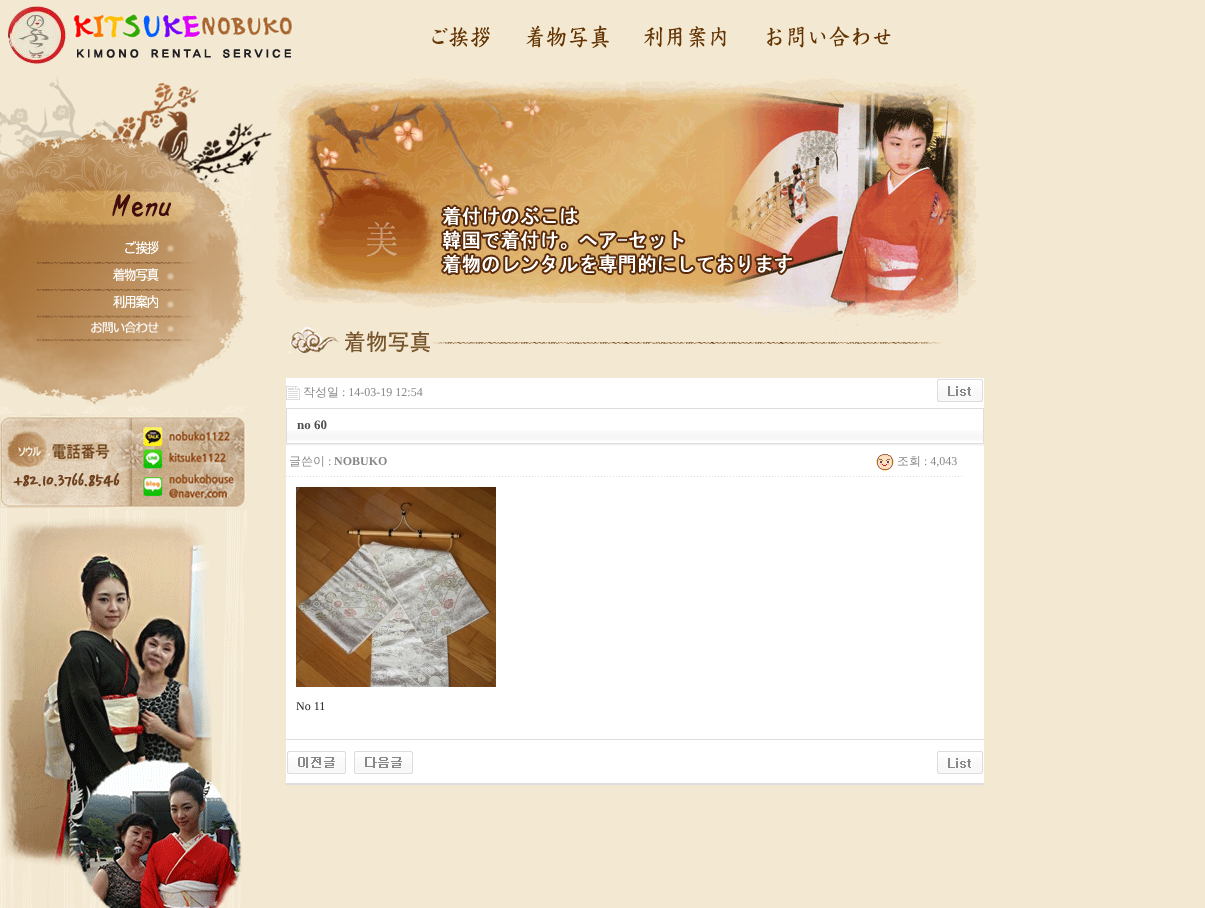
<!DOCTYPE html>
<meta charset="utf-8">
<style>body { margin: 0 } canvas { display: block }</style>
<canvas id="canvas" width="1205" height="908"></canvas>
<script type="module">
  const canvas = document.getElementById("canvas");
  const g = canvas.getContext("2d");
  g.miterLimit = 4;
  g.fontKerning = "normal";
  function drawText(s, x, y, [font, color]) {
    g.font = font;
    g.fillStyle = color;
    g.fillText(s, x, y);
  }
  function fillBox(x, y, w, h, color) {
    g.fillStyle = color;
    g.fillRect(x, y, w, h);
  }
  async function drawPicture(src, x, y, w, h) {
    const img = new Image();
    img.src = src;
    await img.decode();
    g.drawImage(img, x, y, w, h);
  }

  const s1 = ["500 12px WenQuanYi Zen Hei", "#888888"];
  const s2 = ["12px Liberation Serif", "#888888"];
  const s3 = ["bold 13px Liberation Serif", "#505050"];
  const s4 = ["bold 12px Liberation Serif", "#888888"];
  const s5 = ["12px Liberation Serif", "#222222"];

  fillBox(0, 0, 1205, 908, "#F3E9D2");
  await drawPicture("pic1.png", 8, 6, 285, 58);
  await drawPicture("pic2.png", 432, 27, 58, 21);
  await drawPicture("pic3.png", 526, 25, 83, 23);
  await drawPicture("pic4.png", 644, 26, 82, 22);
  await drawPicture("pic5.png", 767, 26, 124, 22);
  await drawPicture("pic6.png", 0, 76, 275, 160);
  await drawPicture("pic7.png", 0, 236, 243, 23);
  await drawPicture("pic8.png", 0, 259, 244, 32);
  await drawPicture("pic9.png", 0, 291, 248, 22);
  await drawPicture("pic10.png", 0, 313, 244, 29);
  await drawPicture("pic11.png", 0, 342, 233, 63);
  await drawPicture("pic12.png", 0, 406, 247, 502);
  await drawPicture("pic13.png", 275, 72, 704, 281);
  fillBox(286, 378, 698, 405, "#FFFFFF");
  await drawPicture("pic14.png", 286, 386, 14, 14);
  drawText("작성일", 303, 396, s1);
  drawText(": 14-03-19 12:54", 342, 396, s2);
  await drawPicture("pic15.png", 937, 379, 46, 23);
  await drawPicture("pic16.png", 287, 430, 696, 11);
  g.strokeStyle = "#DDDDDD";
  g.strokeRect(286.5, 408.5, 697, 35);
  drawText("no 60", 297, 429, s3);
  await drawPicture("pic17.png", 286, 444, 698, 2);
  await drawPicture("pic18.png", 286, 476, 676, 1);
  drawText("글쓴이", 289, 465, s1);
  drawText(":", 328, 465, s2);
  drawText("NOBUKO", 334, 465, s4);
  await drawPicture("pic19.png", 876, 454, 18, 17);
  drawText("조회", 897, 465, s1);
  drawText(": 4,043", 924, 465, s2);
  await drawPicture("pic20.png", 296, 487, 200, 200);
  drawText("No 11", 296, 710, s5);
  fillBox(286, 739, 698, 1, "#DDDDDD");
  await drawPicture("pic21.png", 287, 751, 59, 23);
  await drawPicture("pic22.png", 354, 751, 59, 23);
  await drawPicture("pic15.png", 937, 751, 46, 23);
  fillBox(286, 783, 698, 2, "#DEDEDE");
</script>
